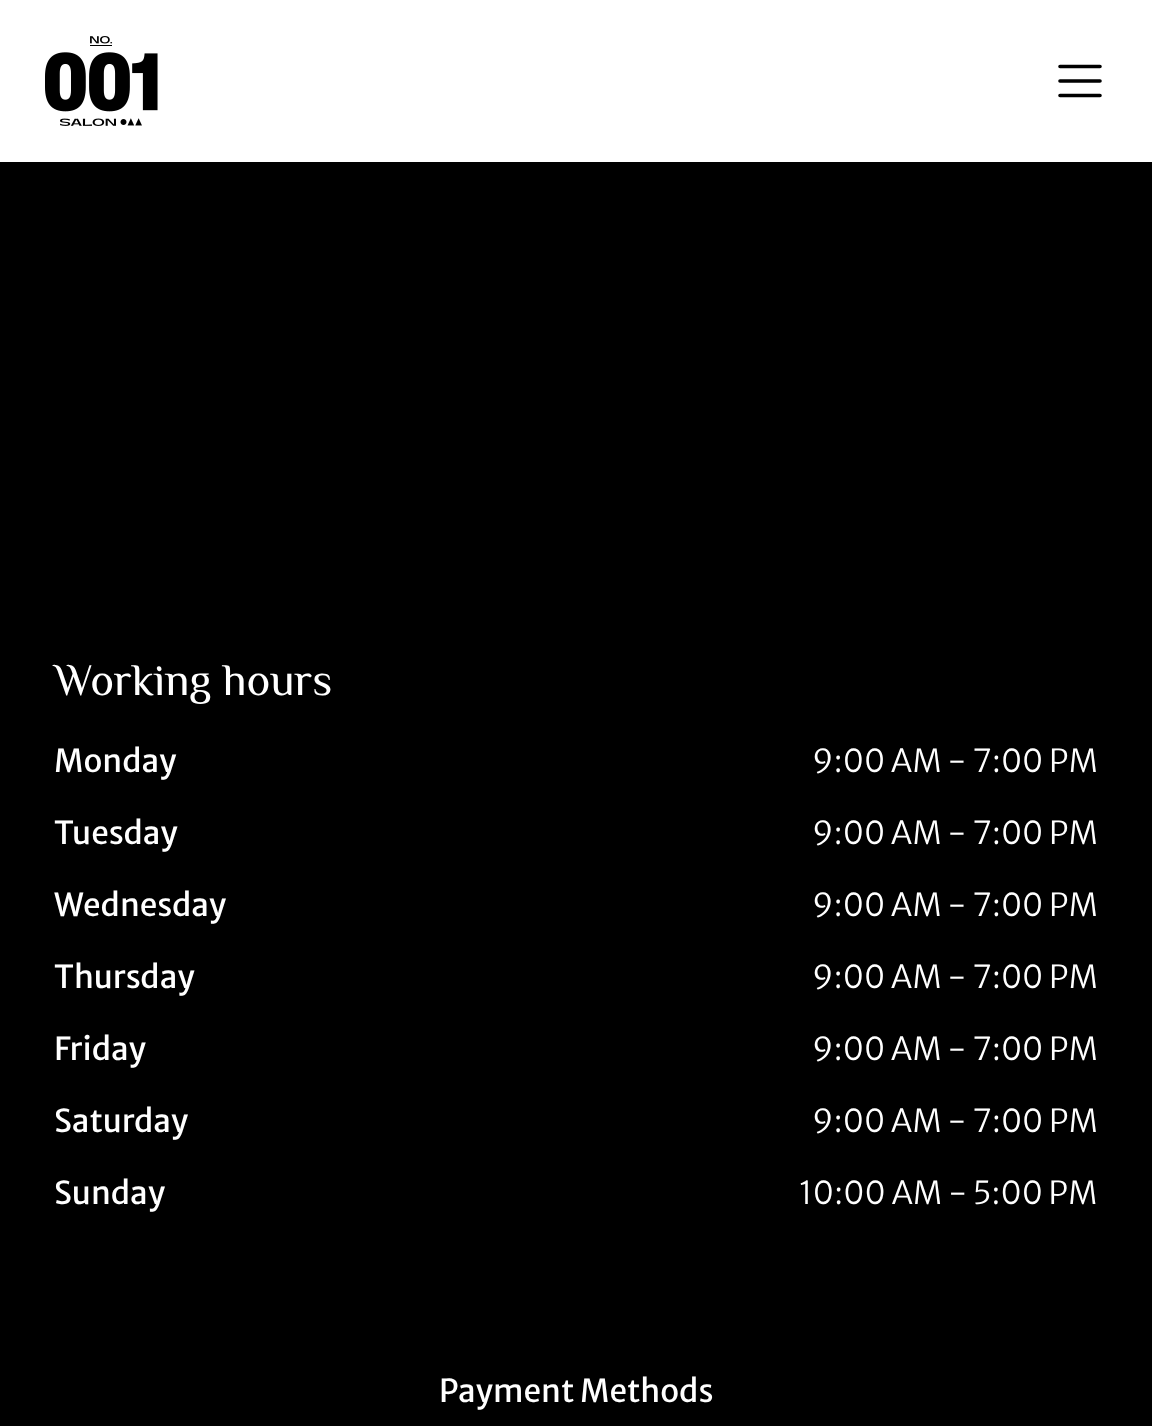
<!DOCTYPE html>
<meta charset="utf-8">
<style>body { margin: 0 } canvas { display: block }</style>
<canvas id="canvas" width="1152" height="1426"></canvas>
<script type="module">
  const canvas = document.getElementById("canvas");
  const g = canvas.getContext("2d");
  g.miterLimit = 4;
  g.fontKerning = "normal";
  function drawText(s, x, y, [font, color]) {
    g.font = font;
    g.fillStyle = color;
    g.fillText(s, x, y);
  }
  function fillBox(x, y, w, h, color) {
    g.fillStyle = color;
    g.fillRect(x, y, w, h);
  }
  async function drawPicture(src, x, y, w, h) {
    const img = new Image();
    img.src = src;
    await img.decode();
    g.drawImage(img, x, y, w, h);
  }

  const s1 = ["45px Philosopher", "#FFFFFF"];
  const s2 = ["31.5px Merriweather Sans", "#FFFFFF"];
  const s3 = ["300 31.5px Merriweather Sans", "#FFFFFF"];

  fillBox(0, 0, 1152, 1426, "#000000");
  fillBox(0, 0, 1152, 162, "#FFFFFF");
  await drawPicture("pic1.png", 45, 36, 113, 90);
  g.beginPath();
  g.moveTo(1060, 66.5);
  g.lineTo(1100, 66.5);
  g.moveTo(1060, 81);
  g.lineTo(1100, 81);
  g.moveTo(1060, 95.5);
  g.lineTo(1100, 95.5);
  g.strokeStyle = "#000000";
  g.lineWidth = 3.6;
  g.lineCap = "round";
  g.stroke();
  drawText("Working hours", 54, 695, s1);
  drawText("Monday", 54, 772, s2);
  drawText("9:00 AM - 7:00 PM", 812, 772, s3);
  drawText("Tuesday", 54, 844, s2);
  drawText("9:00 AM - 7:00 PM", 812, 844, s3);
  drawText("Wednesday", 54, 916, s2);
  drawText("9:00 AM - 7:00 PM", 812, 916, s3);
  drawText("Thursday", 54, 988, s2);
  drawText("9:00 AM - 7:00 PM", 812, 988, s3);
  drawText("Friday", 54, 1060, s2);
  drawText("9:00 AM - 7:00 PM", 812, 1060, s3);
  drawText("Saturday", 54, 1132, s2);
  drawText("9:00 AM - 7:00 PM", 812, 1132, s3);
  drawText("Sunday", 54, 1204, s2);
  drawText("10:00 AM - 5:00 PM", 799, 1204, s3);
  drawText("Payment Methods", 439, 1402, s2);
</script>
